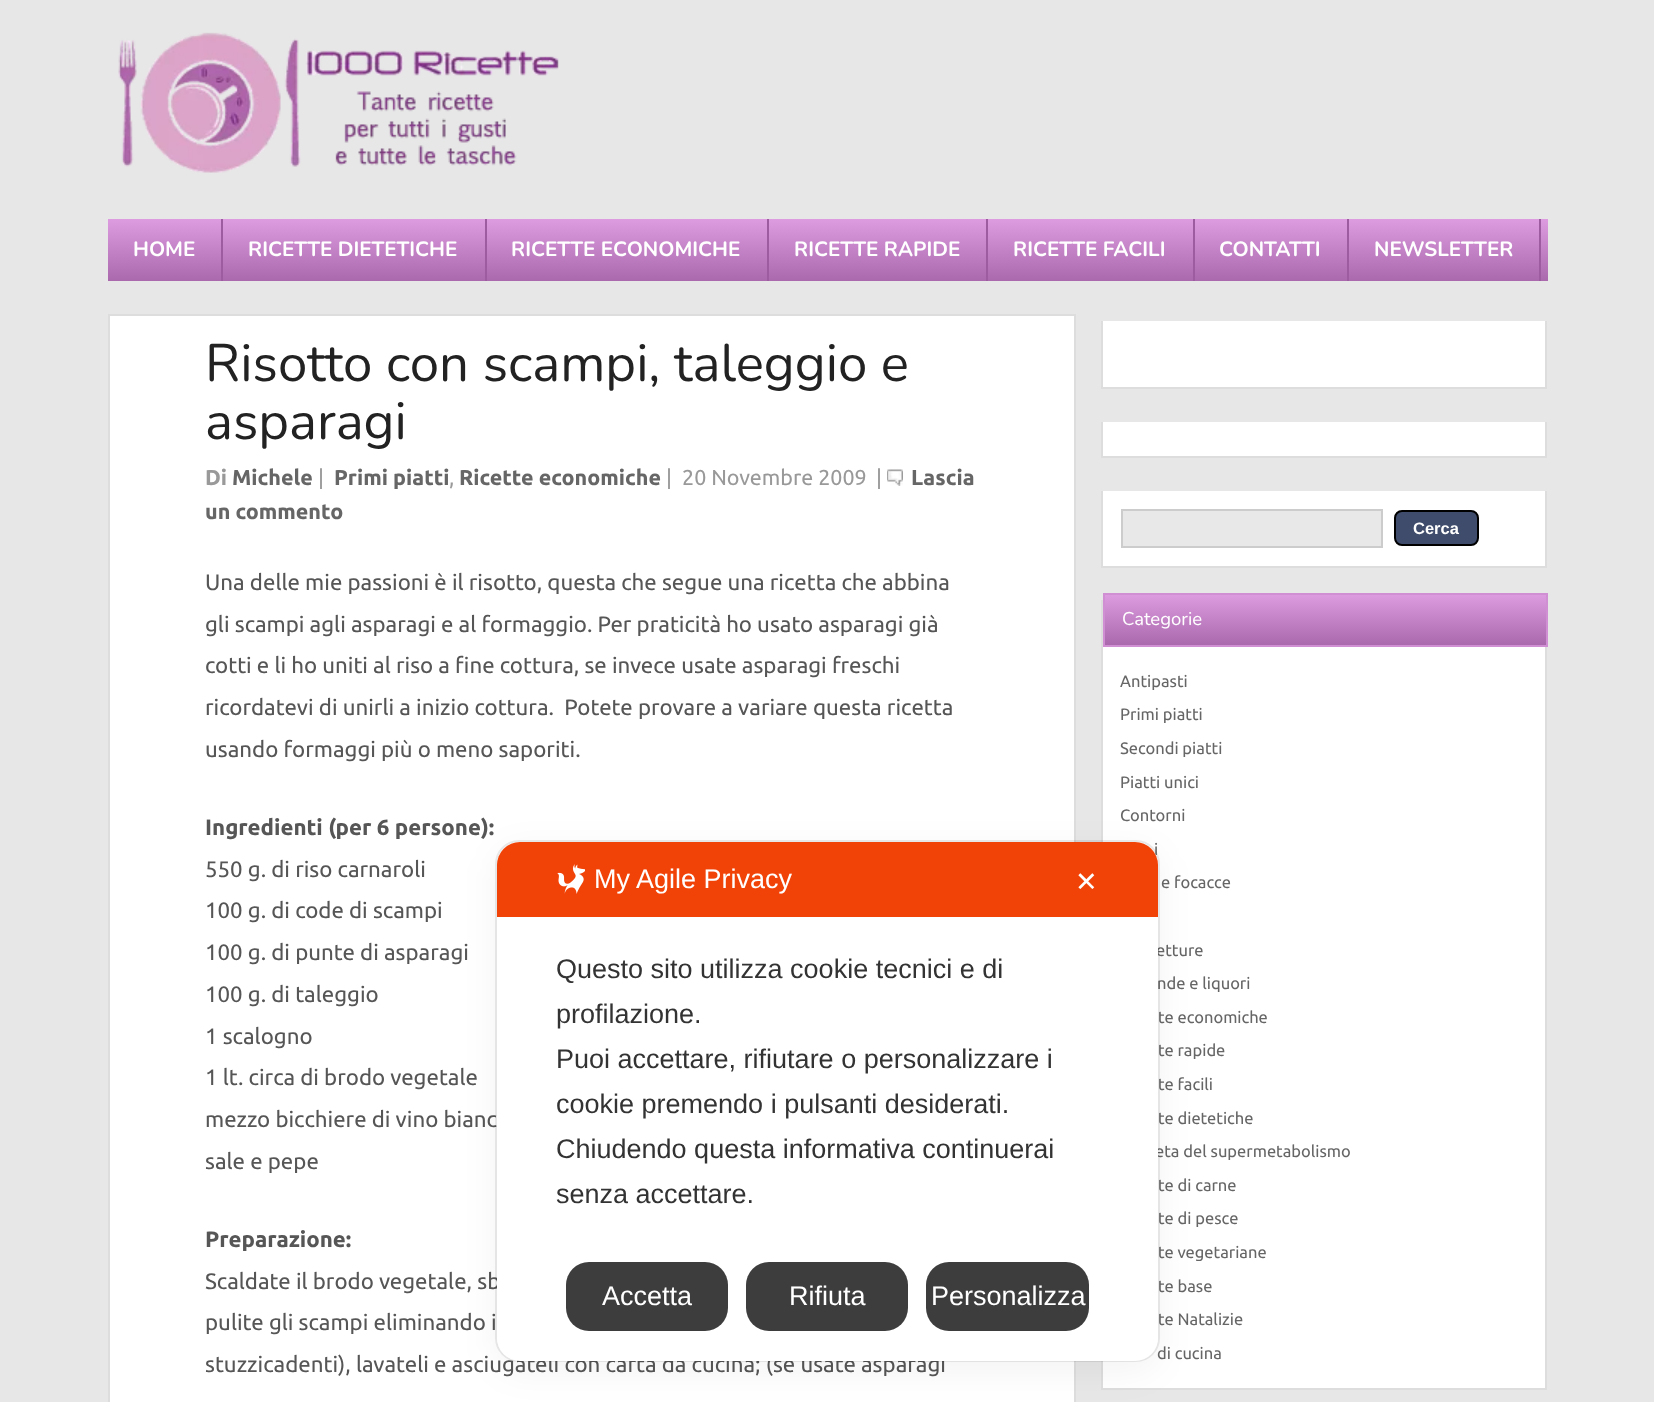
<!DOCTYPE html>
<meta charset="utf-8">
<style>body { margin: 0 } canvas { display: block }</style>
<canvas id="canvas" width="1654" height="1402"></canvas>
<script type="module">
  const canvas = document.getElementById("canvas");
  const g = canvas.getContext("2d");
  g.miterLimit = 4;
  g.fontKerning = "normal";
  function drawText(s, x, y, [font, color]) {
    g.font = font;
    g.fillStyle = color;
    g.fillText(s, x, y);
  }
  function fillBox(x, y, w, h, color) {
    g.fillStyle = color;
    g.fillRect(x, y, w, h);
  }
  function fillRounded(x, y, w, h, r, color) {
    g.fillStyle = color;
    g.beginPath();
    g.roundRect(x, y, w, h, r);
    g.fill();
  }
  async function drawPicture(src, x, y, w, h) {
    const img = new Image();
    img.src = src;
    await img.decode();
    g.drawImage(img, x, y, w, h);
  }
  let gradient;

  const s1 = ["bold 20.6px Nunito", "#FFFFFF"];
  const s2 = ["52.75px Nunito", "#222222"];
  const s3 = ["bold 21.5px Ubuntu", "#999999"];
  const s4 = ["bold 21.5px Ubuntu", "#666666"];
  const s5 = ["21.5px Ubuntu", "#999999"];
  const s6 = ["22.25px Ubuntu", "#565656"];
  const s7 = ["bold 22.25px Ubuntu", "#565656"];
  const s8 = ["bold 16.5px Liberation Sans", "#FFFFFF"];
  const s9 = ["18.5px Nunito", "#FFFFFF"];
  const s10 = ["16.5px Ubuntu", "#666666"];
  const s11 = ["27px Liberation Sans", "#FFFFFF"];
  const s12 = ["27px DejaVu Sans", "#FFFFFF"];
  const s13 = ["27px Liberation Sans", "#333333"];

  fillBox(0, 0, 1654, 1402, "#E7E7E7");
  await drawPicture("pic1.png", 118, 32, 441, 141);
  gradient = g.createLinearGradient(828, 219, 828, 281);
  gradient.addColorStop(0, "#DD9CE0");
  gradient.addColorStop(1, "#AA69AD");
  g.fillStyle = gradient;
  g.fillRect(108, 219, 1440, 62);
  fillBox(221, 219, 2, 62, "#9D5CA0");
  drawText("HOME", 133, 256, s1);
  fillBox(485, 219, 2, 62, "#9D5CA0");
  drawText("RICETTE DIETETICHE", 248, 256, s1);
  fillBox(767, 219, 2, 62, "#9D5CA0");
  drawText("RICETTE ECONOMICHE", 511, 256, s1);
  fillBox(986, 219, 2, 62, "#9D5CA0");
  drawText("RICETTE RAPIDE", 794, 256, s1);
  fillBox(1193, 219, 2, 62, "#9D5CA0");
  drawText("RICETTE FACILI", 1013, 256, s1);
  fillBox(1347, 219, 2, 62, "#9D5CA0");
  drawText("CONTATTI", 1219, 256, s1);
  fillBox(1539, 219, 2, 62, "#9D5CA0");
  drawText("NEWSLETTER", 1374, 256, s1);
  g.beginPath();
  g.rect(109, 315, 966, 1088);
  g.fill();
  g.strokeStyle = "#DDDDDD";
  g.lineWidth = 2;
  g.stroke();
  drawText("Risotto con scampi, taleggio e", 205, 381, s2);
  drawText("asparagi", 205, 439, s2);
  drawText("Di", 205, 485, s3);
  drawText("Michele", 232, 485, s4);
  drawText("|", 318, 485, s5);
  drawText("Primi piatti", 334, 485, s4);
  drawText(",", 449, 485, s5);
  drawText("Ricette economiche", 459, 485, s4);
  drawText("|", 666, 485, s5);
  drawText("20 Novembre 2009", 682, 485, s5);
  drawText("|", 876, 485, s5);
  await drawPicture("pic2.png", 887, 469, 16, 17);
  drawText("Lascia", 911, 485, s4);
  drawText("un commento", 205, 519, s4);
  drawText("Una delle mie passioni è il risotto, questa che segue una ricetta che abbina", 205, 590, s6);
  drawText("gli scampi agli asparagi e al formaggio. Per praticità ho usato asparagi già", 205, 632, s6);
  drawText("cotti e li ho uniti al riso a fine cottura, se invece usate asparagi freschi", 205, 673, s6);
  drawText("ricordatevi di unirli a inizio cottura.  Potete provare a variare questa ricetta", 205, 715, s6);
  drawText("usando formaggi più o meno saporiti.", 205, 757, s6);
  drawText("Ingredienti (per 6 persone):", 205, 835, s7);
  drawText("550 g. di riso carnaroli", 205, 877, s6);
  drawText("100 g. di code di scampi", 205, 918, s6);
  drawText("100 g. di punte di asparagi", 205, 960, s6);
  drawText("100 g. di taleggio", 205, 1002, s6);
  drawText("1 scalogno", 205, 1044, s6);
  drawText("1 lt. circa di brodo vegetale", 205, 1085, s6);
  drawText("mezzo bicchiere di vino bianc", 205, 1127, s6);
  drawText("sale e pepe", 205, 1169, s6);
  drawText("Preparazione:", 205, 1247, s7);
  drawText("Scaldate il brodo vegetale, sb", 205, 1289, s6);
  drawText("pulite gli scampi eliminando i", 205, 1330, s6);
  drawText("stuzzicadenti), lavateli e asciugateli con carta da cucina; (se usate asparagi", 205, 1372, s6);
  fillBox(1103, 321, 442, 66, "#FFFFFF");
  fillBox(1545, 321, 2, 68, "#DDDDDD");
  fillBox(1101, 387, 446, 2, "#DDDDDD");
  fillBox(1101, 321, 2, 68, "#DDDDDD");
  fillBox(1103, 422, 442, 34, "#FFFFFF");
  fillBox(1545, 422, 2, 36, "#DDDDDD");
  fillBox(1101, 456, 446, 2, "#DDDDDD");
  fillBox(1101, 422, 2, 36, "#DDDDDD");
  fillBox(1103, 491, 442, 75, "#FFFFFF");
  fillBox(1545, 491, 2, 76, "#DDDDDD");
  fillBox(1101, 566, 446, 2, "#DDDDDD");
  fillBox(1101, 491, 2, 76, "#DDDDDD");
  g.fillStyle = "#E8E8E8";
  g.beginPath();
  g.rect(1122, 510, 260, 37);
  g.fill();
  g.strokeStyle = "#CCCCCC";
  g.stroke();
  g.fillStyle = "#3F4C6B";
  g.beginPath();
  g.roundRect(1395, 511, 83, 34, 7);
  g.fill();
  g.strokeStyle = "#000000";
  g.stroke();
  drawText("Cerca", 1413, 534, s8);
  fillBox(1103, 647, 442, 741, "#FFFFFF");
  fillBox(1545, 647, 2, 742, "#DDDDDD");
  fillBox(1101, 1388, 446, 2, "#DDDDDD");
  fillBox(1101, 600, 2, 789, "#DDDDDD");
  gradient = g.createLinearGradient(1325, 594, 1325, 645);
  gradient.addColorStop(0, "#DD9CE0");
  gradient.addColorStop(1, "#AA69AD");
  g.fillStyle = gradient;
  g.fillRect(1105, 595, 441, 50);
  g.strokeStyle = "#D08FD3";
  g.strokeRect(1104, 594, 443, 52);
  drawText("Categorie", 1122, 625, s9);
  drawText("Antipasti", 1120, 687, s10);
  drawText("Primi piatti", 1120, 720, s10);
  drawText("Secondi piatti", 1120, 754, s10);
  drawText("Piatti unici", 1120, 788, s10);
  drawText("Contorni", 1120, 821, s10);
  drawText("i", 1154, 855, s10);
  drawText("e focacce", 1161, 888, s10);
  drawText("etture", 1156, 956, s10);
  drawText("nde e liquori", 1157, 989, s10);
  drawText("te economiche", 1158, 1023, s10);
  drawText("te rapide", 1158, 1056, s10);
  drawText("te facili", 1158, 1090, s10);
  drawText("te dietetiche", 1158, 1124, s10);
  drawText("eta del supermetabolismo", 1155, 1157, s10);
  drawText("te di carne", 1158, 1191, s10);
  drawText("te di pesce", 1158, 1224, s10);
  drawText("te vegetariane", 1158, 1258, s10);
  drawText("te base", 1158, 1292, s10);
  drawText("te Natalizie", 1158, 1325, s10);
  drawText("di cucina", 1157, 1359, s10);
  g.beginPath();
  g.roundRect(496, 841, 663, 520, 23);
  g.strokeStyle = "rgba(0, 0, 0, 0.08)";
  g.stroke();
  g.fillStyle = "rgba(0, 0, 0, 0.05)";
  g.filter = "blur(18px)";
  g.beginPath();
  g.roundRect(497, 851, 661, 519, 23);
  g.fill();
  g.filter = "none";
  fillRounded(497, 842, 661, 519, 23, "#FFFFFF");
  g.fillStyle = "#F14307";
  g.beginPath();
  g.roundRect(497, 842, 661, 75, [23, 23, 0, 0]);
  g.fill();
  await drawPicture("pic3.png", 557, 864, 28, 30);
  drawText("My Agile Privacy", 594, 888, s11);
  drawText("✕", 1075, 891, s12);
  drawText("Questo sito utilizza cookie tecnici e di", 556, 978, s13);
  drawText("profilazione.", 556, 1023, s13);
  drawText("Puoi accettare, rifiutare o personalizzare i", 556, 1068, s13);
  drawText("cookie premendo i pulsanti desiderati.", 556, 1113, s13);
  drawText("Chiudendo questa informativa continuerai", 556, 1158, s13);
  drawText("senza accettare.", 556, 1203, s13);
  fillRounded(566, 1262, 162, 69, 23, "#3D3D3D");
  drawText("Accetta", 602, 1305, s11);
  fillRounded(746, 1262, 162, 69, 23, "#3D3D3D");
  drawText("Rifiuta", 789, 1305, s11);
  fillRounded(926, 1262, 163, 69, 23, "#3D3D3D");
  drawText("Personalizza", 931, 1305, s11);
</script>
